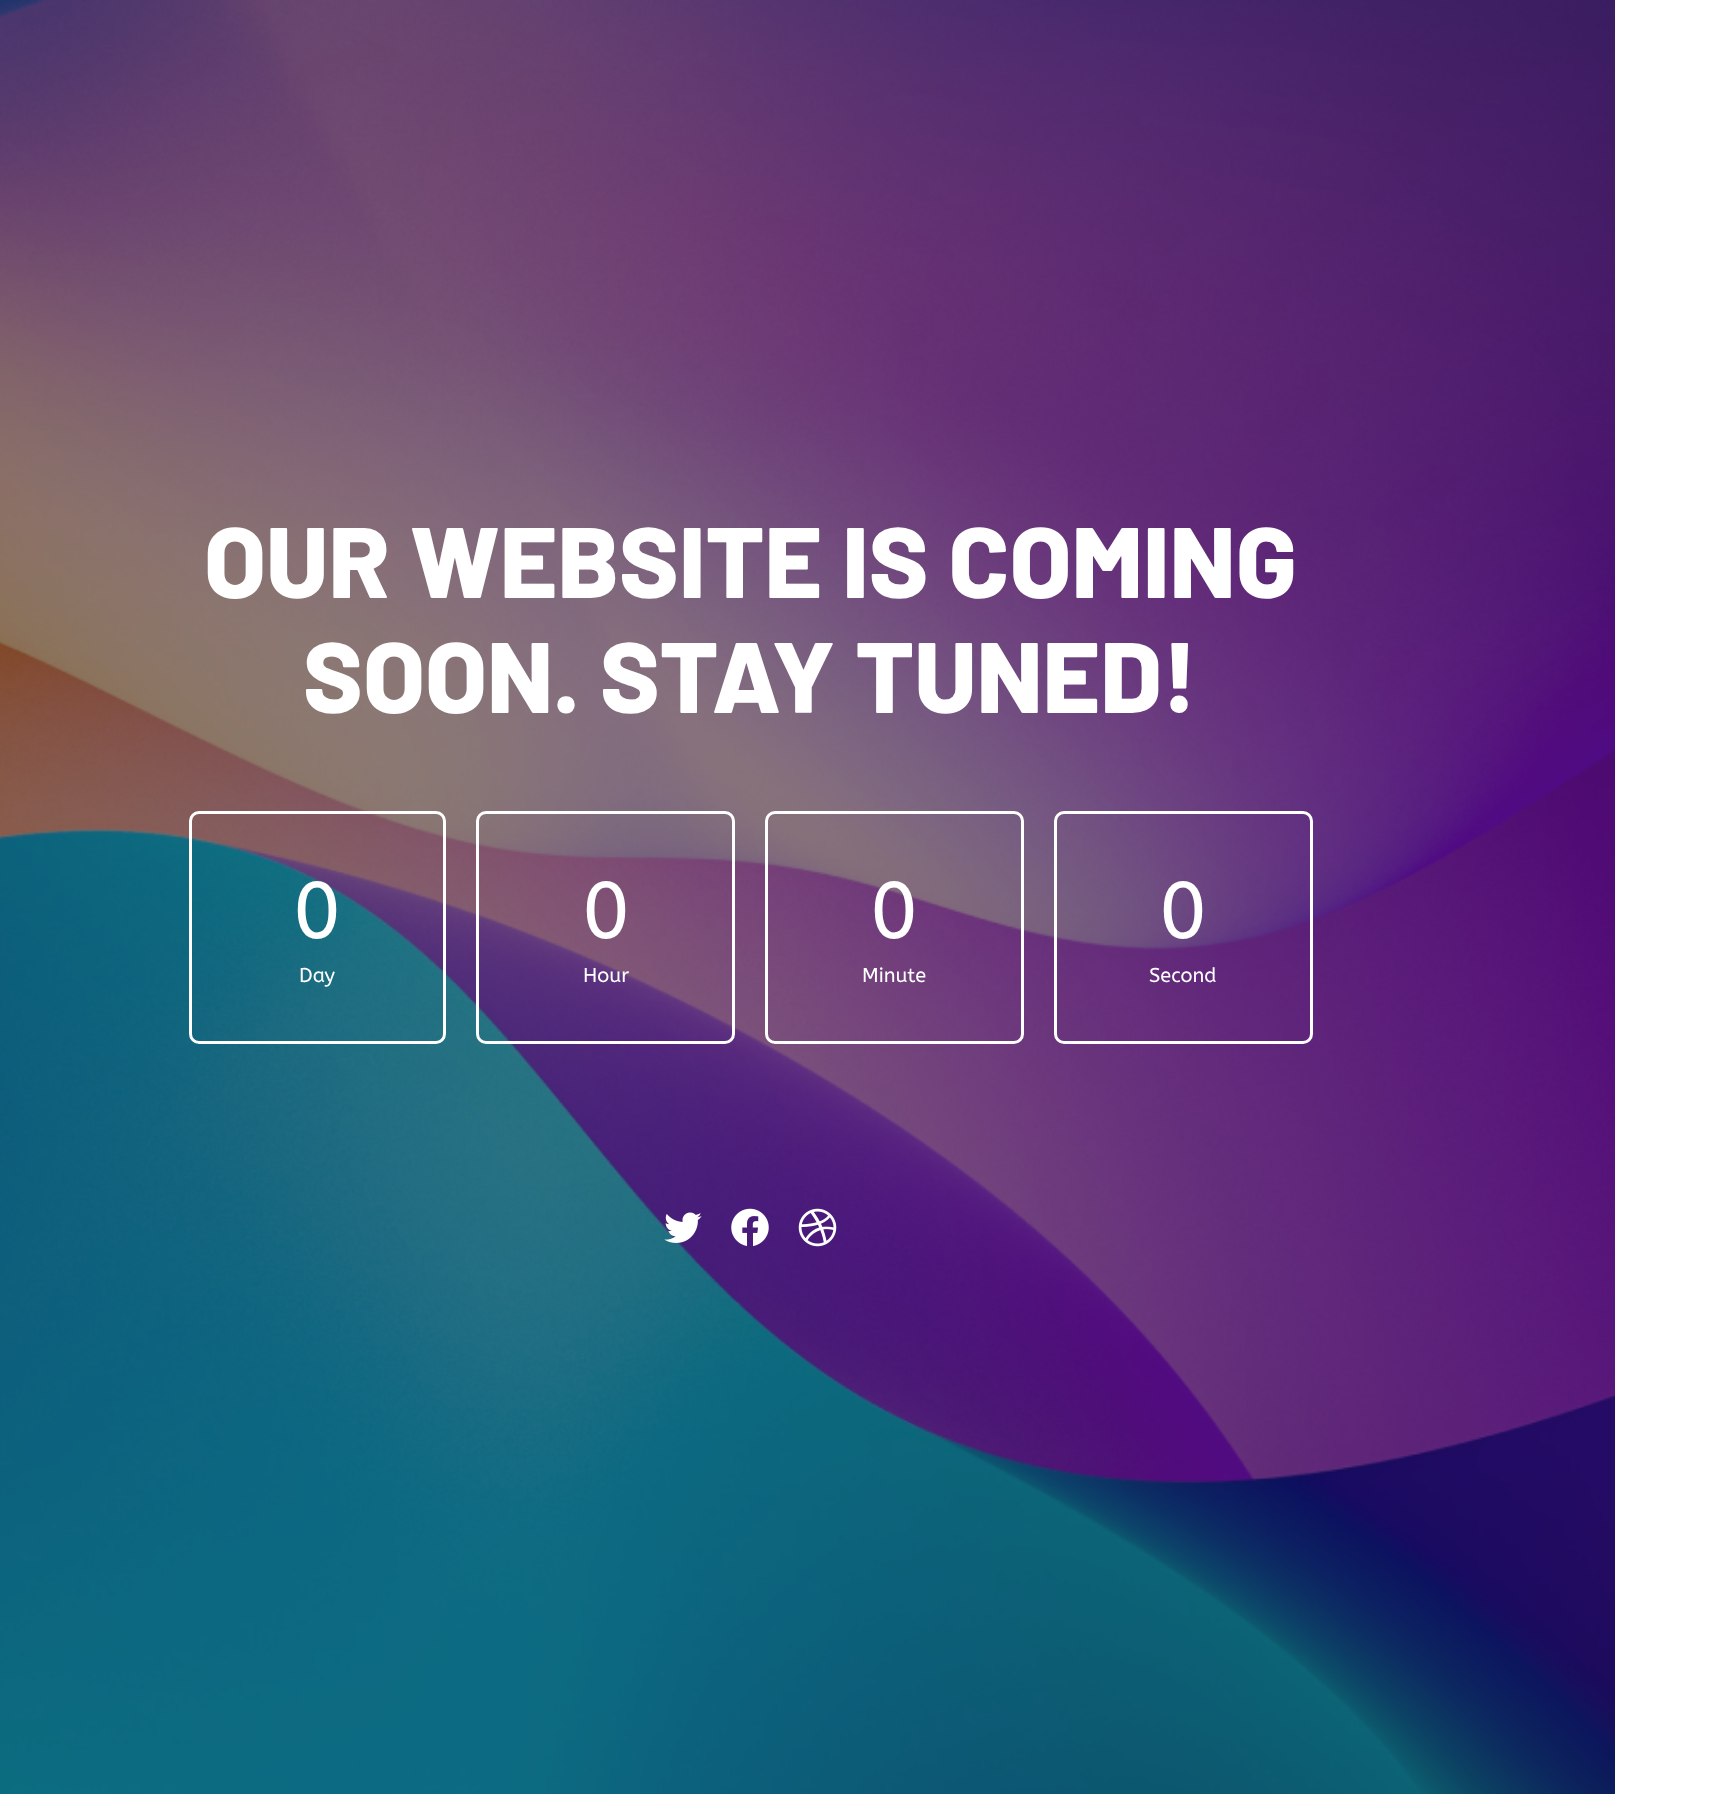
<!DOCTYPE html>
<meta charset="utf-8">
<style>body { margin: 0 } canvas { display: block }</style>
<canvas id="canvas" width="1729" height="1794"></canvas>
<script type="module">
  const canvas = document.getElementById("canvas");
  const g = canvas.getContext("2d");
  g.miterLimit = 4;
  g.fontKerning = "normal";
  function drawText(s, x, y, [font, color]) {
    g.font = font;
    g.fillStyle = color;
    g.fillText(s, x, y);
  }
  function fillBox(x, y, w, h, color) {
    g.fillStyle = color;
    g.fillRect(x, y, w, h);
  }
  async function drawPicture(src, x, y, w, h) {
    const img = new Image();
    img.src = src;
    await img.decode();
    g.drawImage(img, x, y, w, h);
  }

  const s1 = ["800 100px Barlow", "#FFFFFF"];
  const s2 = ["80px ABeeZee", "#FFFFFF"];
  const s3 = ["20px ABeeZee", "#FFFFFF"];

  fillBox(0, 0, 1729, 1794, "#FFFFFF");
  fillBox(0, 0, 1615, 1794, "#191717");
  await drawPicture("pic1.png", 0, 0, 1615, 1794);
  drawText("OUR WEBSITE IS COMING", 204, 598, s1);
  drawText("SOON. STAY TUNED!", 303, 713, s1);
  g.beginPath();
  g.roundRect(190.5, 812.5, 254, 230, 8.5);
  g.strokeStyle = "#FFFFFF";
  g.lineWidth = 3;
  g.stroke();
  drawText("0", 293, 938, s2);
  drawText("Day", 299, 982, s3);
  g.beginPath();
  g.roundRect(477.5, 812.5, 256, 230, 8.5);
  g.stroke();
  drawText("0", 582, 938, s2);
  drawText("Hour", 583, 982, s3);
  g.beginPath();
  g.roundRect(766.5, 812.5, 256, 230, 8.5);
  g.stroke();
  drawText("0", 870, 938, s2);
  drawText("Minute", 862, 982, s3);
  g.beginPath();
  g.roundRect(1055.5, 812.5, 256, 230, 8.5);
  g.stroke();
  drawText("0", 1159, 938, s2);
  drawText("Second", 1149, 982, s3);
  await drawPicture("pic2.png", 664, 1212, 38, 31);
  await drawPicture("pic3.png", 731, 1208, 38, 38);
  await drawPicture("pic4.png", 798, 1208, 39, 39);
</script>
